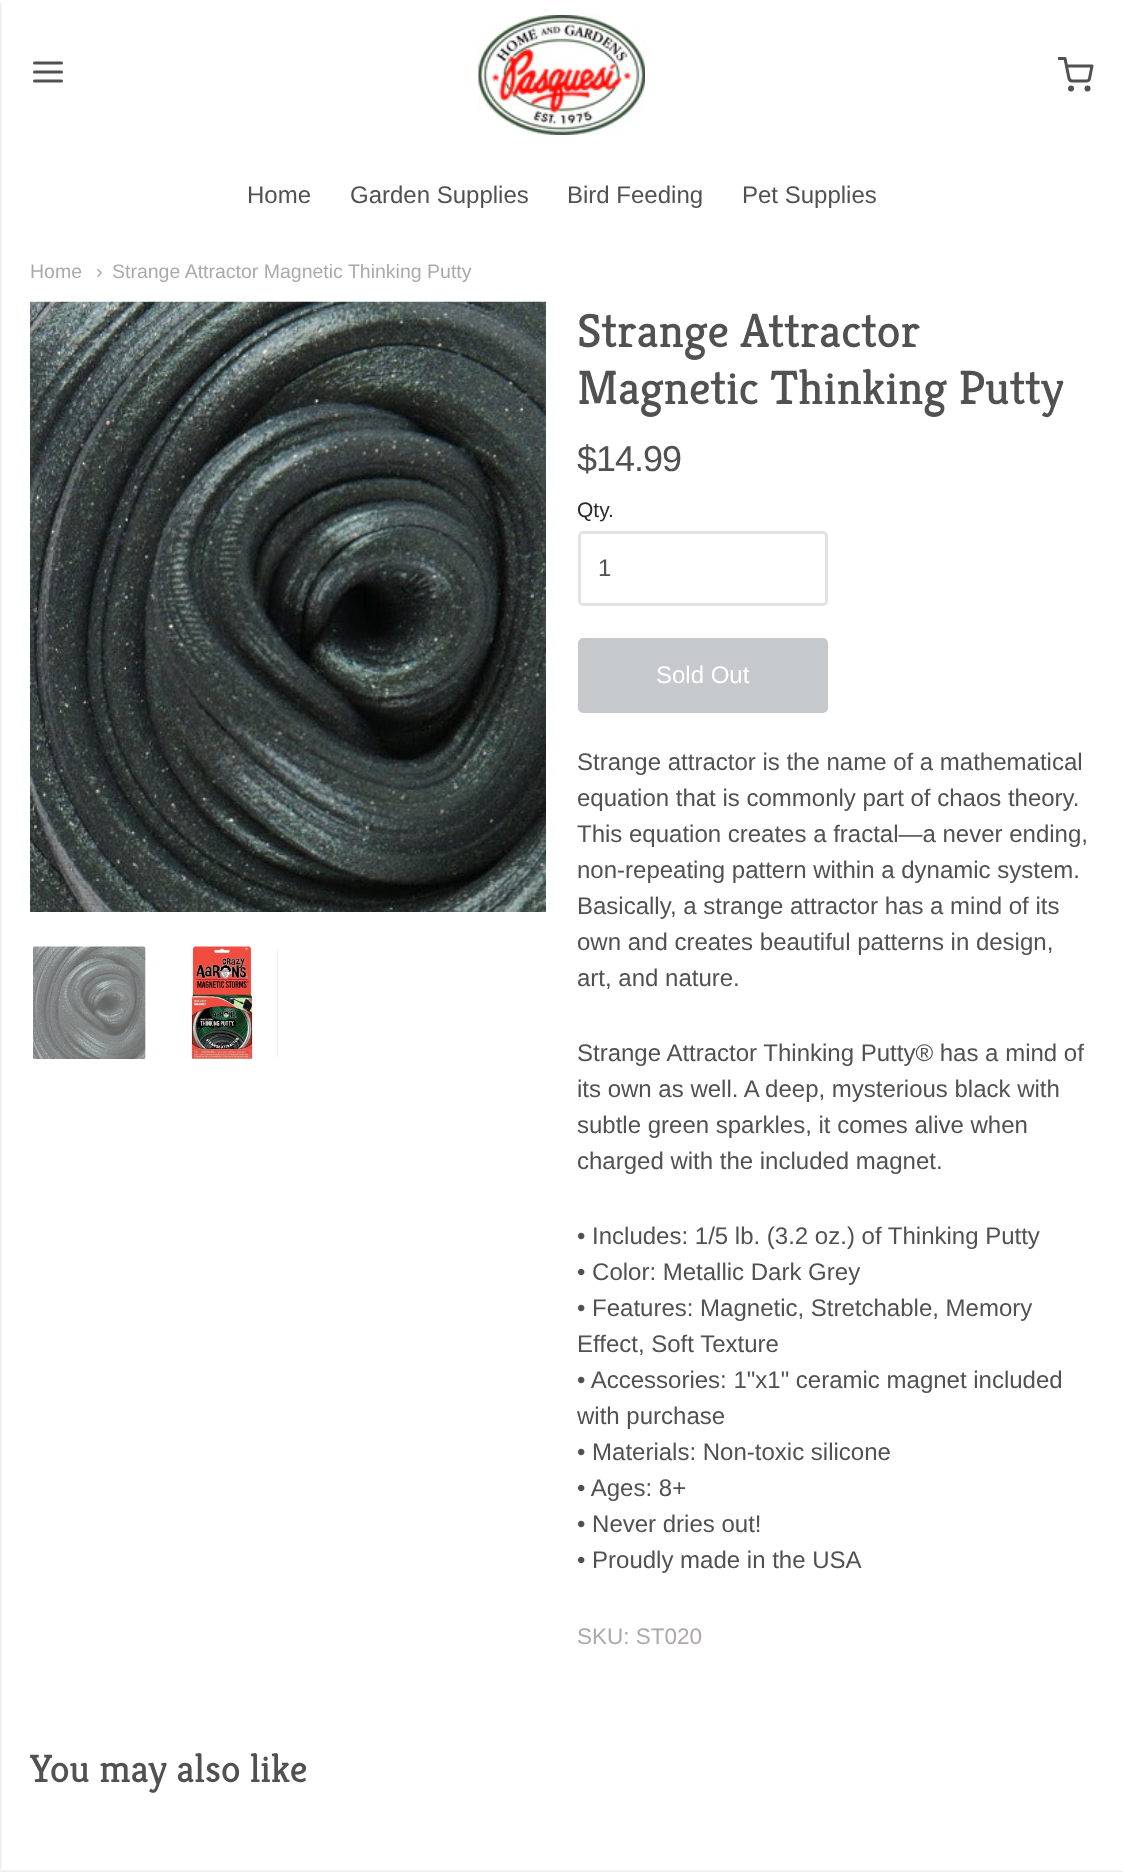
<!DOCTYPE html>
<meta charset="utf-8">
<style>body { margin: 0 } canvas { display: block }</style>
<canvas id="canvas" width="1123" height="1872"></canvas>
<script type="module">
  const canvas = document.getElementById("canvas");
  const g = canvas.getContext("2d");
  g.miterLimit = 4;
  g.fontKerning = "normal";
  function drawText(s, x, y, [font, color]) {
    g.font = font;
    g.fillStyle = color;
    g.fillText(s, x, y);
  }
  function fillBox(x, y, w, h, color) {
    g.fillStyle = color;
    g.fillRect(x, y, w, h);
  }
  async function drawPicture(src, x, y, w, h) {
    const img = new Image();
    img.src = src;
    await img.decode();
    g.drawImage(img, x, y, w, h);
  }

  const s1 = ["24px Liberation Sans", "#515151"];
  const s2 = ["19.5px Liberation Sans", "#AEA8A8"];
  const s3 = ["48px Kreon", "#515151"];
  const s4 = ["36px Liberation Sans", "#515151"];
  const s5 = ["21px Liberation Sans", "#2A2B2B"];
  const s6 = ["24px Liberation Sans", "#FFFFFF"];
  const s7 = ["22.5px Liberation Sans", "#AEA8A8"];
  const s8 = ["39.5px Kreon", "#515151"];

  fillBox(0, 0, 1123, 1872, "#FFFFFF");
  g.fillStyle = "rgba(0, 0, 0, 0.2)";
  g.filter = "blur(1.5px)";
  g.beginPath();
  g.rect(-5, 3, 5, 1866);
  g.fill();
  g.filter = "none";
  g.beginPath();
  g.moveTo(34.5, 72);
  g.lineTo(61.5, 72);
  g.moveTo(34.5, 63);
  g.lineTo(61.5, 63);
  g.moveTo(34.5, 81);
  g.lineTo(61.5, 81);
  g.strokeStyle = "#515151";
  g.lineWidth = 3;
  g.lineCap = "round";
  g.lineJoin = "round";
  g.stroke();
  await drawPicture("pic1.png", 478, 15, 167, 120);
  g.save();
  g.beginPath();
  g.rect(1058, 57, 36, 36);
  g.clip();
  g.beginPath();
  g.moveTo(1059, 58.5);
  g.lineTo(1065, 58.5);
  g.lineTo(1069, 78.5);
  g.bezierCurveTo(1069.5, 80, 1070.5, 81, 1072, 81);
  g.lineTo(1086.5, 81);
  g.bezierCurveTo(1088, 81, 1089.5, 80, 1089.5, 78.5);
  g.lineTo(1092, 66);
  g.lineTo(1066.5, 66);
  g.stroke();
  g.restore();
  g.beginPath();
  g.arc(1071, 88.5, 1.5, 0, Math.PI * 2);
  g.stroke();
  g.beginPath();
  g.arc(1087.5, 88.5, 1.5, 0, Math.PI * 2);
  g.stroke();
  drawText("Home", 247, 203, s1);
  drawText("Garden Supplies", 350, 203, s1);
  drawText("Bird Feeding", 567, 203, s1);
  drawText("Pet Supplies", 742, 203, s1);
  drawText("Home", 30, 278, s2);
  drawText("›", 96, 278, s2);
  drawText("Strange Attractor Magnetic Thinking Putty", 112, 278, s2);
  await drawPicture("pic2.png", 30, 301, 516, 611);
  g.fillStyle = "#F7F8F8";
  g.beginPath();
  g.roundRect(31.5, 945.5, 116, 115, 3.5);
  g.fill();
  g.strokeStyle = "#FFFFFF";
  g.lineJoin = "miter";
  g.stroke();
  await drawPicture("pic3.png", 33, 946, 113, 113);
  g.fillStyle = "#F1F3F4";
  g.beginPath();
  g.roundRect(165.5, 945.5, 114, 115, 3.5);
  g.fill();
  g.stroke();
  await drawPicture("pic4.png", 167, 946, 110, 113);
  drawText("Strange Attractor", 577, 347, s3);
  drawText("Magnetic Thinking Putty", 577, 404, s3);
  g.letterSpacing = "-1px";
  drawText("$14.99", 577, 471, s4);
  g.letterSpacing = "0px";
  drawText("Qty.", 577, 517, s5);
  g.beginPath();
  g.roundRect(579.5, 532.5, 247, 72, 3.5);
  g.strokeStyle = "#E1E3E4";
  g.stroke();
  drawText("1", 598, 576, s1);
  g.fillStyle = "#C6C9CC";
  g.beginPath();
  g.roundRect(579.5, 639.5, 247, 72, 3.5);
  g.fill();
  g.strokeStyle = "#C6C9CC";
  g.stroke();
  drawText("Sold Out", 656, 683, s6);
  drawText("Strange attractor is the name of a mathematical", 577, 770, s1);
  drawText("equation that is commonly part of chaos theory.", 577, 806, s1);
  drawText("This equation creates a fractal—a never ending,", 577, 842, s1);
  drawText("non-repeating pattern within a dynamic system.", 577, 878, s1);
  drawText("Basically, a strange attractor has a mind of its", 577, 914, s1);
  drawText("own and creates beautiful patterns in design,", 577, 950, s1);
  drawText("art, and nature.", 577, 986, s1);
  drawText("Strange Attractor Thinking Putty® has a mind of", 577, 1061, s1);
  drawText("its own as well. A deep, mysterious black with", 577, 1097, s1);
  drawText("subtle green sparkles, it comes alive when", 577, 1133, s1);
  drawText("charged with the included magnet.", 577, 1169, s1);
  drawText("• Includes: 1/5 lb. (3.2 oz.) of Thinking Putty", 577, 1244, s1);
  drawText("• Color: Metallic Dark Grey", 577, 1280, s1);
  drawText("• Features: Magnetic, Stretchable, Memory", 577, 1316, s1);
  drawText("Effect, Soft Texture", 577, 1352, s1);
  drawText("• Accessories: 1\"x1\" ceramic magnet included", 577, 1388, s1);
  drawText("with purchase", 577, 1424, s1);
  drawText("• Materials: Non-toxic silicone", 577, 1460, s1);
  drawText("• Ages: 8+", 577, 1496, s1);
  drawText("• Never dries out!", 577, 1532, s1);
  drawText("• Proudly made in the USA", 577, 1568, s1);
  drawText("SKU: ST020", 577, 1644, s7);
  g.fillStyle = "rgba(0, 0, 0, 0.2)";
  g.filter = "blur(1.5px)";
  g.beginPath();
  g.rect(0, 1872, 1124, 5);
  g.fill();
  g.filter = "none";
  drawText("You may also like", 30, 1782, s8);
</script>
